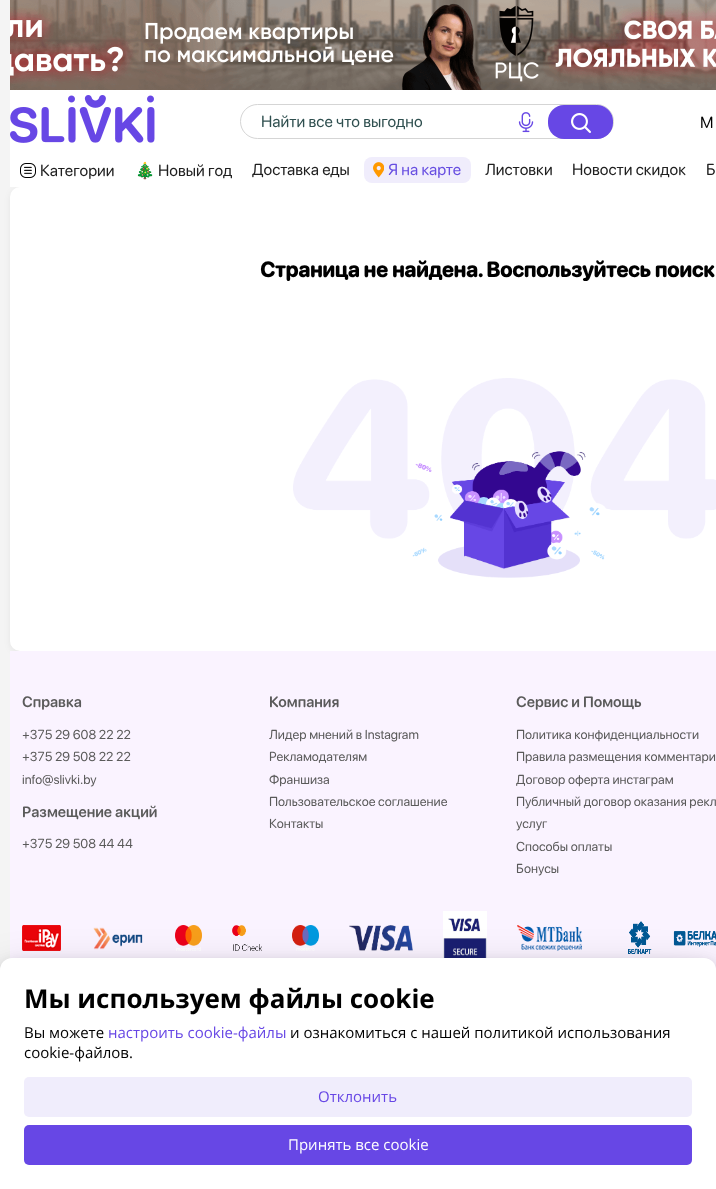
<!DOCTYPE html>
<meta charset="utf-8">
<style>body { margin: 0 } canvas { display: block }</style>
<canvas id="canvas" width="716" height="1189"></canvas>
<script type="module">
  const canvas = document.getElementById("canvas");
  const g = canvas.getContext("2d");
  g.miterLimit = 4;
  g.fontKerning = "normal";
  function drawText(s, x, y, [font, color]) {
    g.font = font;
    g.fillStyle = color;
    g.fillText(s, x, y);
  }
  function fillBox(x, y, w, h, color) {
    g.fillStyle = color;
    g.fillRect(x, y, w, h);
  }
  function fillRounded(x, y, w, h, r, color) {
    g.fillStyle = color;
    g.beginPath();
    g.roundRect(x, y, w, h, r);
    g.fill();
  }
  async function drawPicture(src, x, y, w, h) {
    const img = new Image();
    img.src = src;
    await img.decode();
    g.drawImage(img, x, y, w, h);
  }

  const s1 = ["200 16px 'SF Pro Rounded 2'", "#2F4F4F"];
  const s2 = ["200 16px 'SF Pro Rounded 2'", "#000000"];
  const s3 = ["200 16px 'SF Pro Rounded 2'", "#202020"];
  const s4 = ["16px Noto Color Emoji", "#202020"];
  const s5 = ["200 16px 'SF Pro Rounded 2'", "#674EE1"];
  const s6 = ["bold 21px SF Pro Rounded", "#000000"];
  const s7 = ["200 15px SF Pro Rounded", "#5A5A5A"];
  const s8 = ["200 13px 'SF Pro Rounded 2'", "#5A5A5A"];
  const s9 = ["bold 26px Open Sans", "#000000"];
  const s10 = ["15px Open Sans", "#000000"];
  const s11 = ["15px Open Sans", "#6747E5"];
  const s12 = ["15px Open Sans", "#FFFFFF"];

  fillBox(0, 0, 716, 1189, "#F4F4F4");
  await drawPicture("pic1.png", 10, 0, 706, 90);
  g.fillStyle = "rgba(0, 0, 0, 0.06)";
  g.filter = "blur(3px)";
  g.beginPath();
  g.roundRect(10, 189, 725, 464, 10);
  g.fill();
  g.filter = "none";
  fillBox(10, 90, 706, 97, "#FFFFFF");
  await drawPicture("pic2.png", 10, 95, 145, 48);
  g.beginPath();
  g.roundRect(240.5, 104.5, 373, 34, 17);
  g.strokeStyle = "#D5D5D5";
  g.stroke();
  drawText("Найти все что выгодно", 261, 127, s1);
  await drawPicture("pic3.png", 518, 112, 16, 21);
  fillRounded(548, 105, 65, 34, 16, "#6747E5");
  await drawPicture("pic4.png", 571, 113, 20, 20);
  drawText("М", 700, 128, s2);
  await drawPicture("pic5.png", 20, 163, 16, 15);
  drawText("Категории", 40, 176, s3);
  drawText("🎄", 135, 176, s4);
  drawText("Новый год", 158, 176, s3);
  drawText("Доставка еды", 252, 175, s3);
  fillRounded(364, 157, 107, 26, 8, "#F0EDFC");
  await drawPicture("pic6.png", 373, 162, 11, 16);
  drawText("Я на карте", 388, 175, s5);
  drawText("Листовки", 485, 175, s3);
  drawText("Новости скидок", 572, 175, s3);
  drawText("Б", 706, 175, s3);
  fillRounded(10, 187, 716, 464, 10, "#FFFFFF");
  drawText("Страница не найдена. Воспользуйтесь поиск", 260, 277, s6);
  await drawPicture("pic7.png", 293, 378, 423, 200);
  fillBox(10, 651, 706, 319, "#FAF3FF");
  drawText("Справка", 22, 707, s7);
  drawText("+375 29 608 22 22", 22, 739, s8);
  drawText("+375 29 508 22 22", 22, 761, s8);
  drawText("info@slivki.by", 22, 784, s8);
  drawText("Размещение акций", 22, 817, s7);
  drawText("+375 29 508 44 44", 22, 848, s8);
  drawText("Компания", 269, 707, s7);
  drawText("Лидер мнений в Instagram", 269, 739, s8);
  drawText("Рекламодателям", 269, 761, s8);
  drawText("Франшиза", 269, 784, s8);
  drawText("Пользовательское соглашение", 269, 806, s8);
  drawText("Контакты", 269, 828, s8);
  drawText("Сервис и Помощь", 516, 707, s7);
  drawText("Политика конфиденциальности", 516, 739, s8);
  drawText("Правила размещения комментари", 516, 761, s8);
  drawText("Договор оферта инстаграм", 516, 784, s8);
  drawText("Публичный договор оказания рекл", 516, 806, s8);
  drawText("услуг", 516, 828, s8);
  drawText("Способы оплаты", 516, 851, s8);
  drawText("Бонусы", 516, 873, s8);
  await drawPicture("pic8.png", 22, 925, 39, 26);
  await drawPicture("pic9.png", 93, 927, 50, 23);
  await drawPicture("pic10.png", 175, 925, 27, 26);
  await drawPicture("pic11.png", 232, 925, 30, 26);
  await drawPicture("pic12.png", 292, 925, 27, 26);
  await drawPicture("pic13.png", 349, 925, 64, 26);
  await drawPicture("pic14.png", 443, 911, 44, 47);
  await drawPicture("pic15.png", 517, 925, 65, 26);
  await drawPicture("pic16.png", 628, 921, 88, 33);
  g.fillStyle = "rgba(0, 0, 0, 0.12)";
  g.filter = "blur(6px)";
  g.beginPath();
  g.roundRect(0, 962, 716, 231, 12);
  g.fill();
  g.filter = "none";
  g.fillStyle = "rgba(0, 0, 0, 0.32)";
  g.filter = "blur(24px)";
  g.beginPath();
  g.roundRect(0, 982, 716, 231, 12);
  g.fill();
  g.filter = "none";
  g.fillStyle = "#FFFFFF";
  g.beginPath();
  g.roundRect(0, 958, 716, 231, [12, 12, 0, 0]);
  g.fill();
  drawText("Мы используем файлы cookie", 24, 1008, s9);
  drawText("Вы можете", 24, 1038, s10);
  drawText("настроить cookie-файлы", 108, 1038, s11);
  drawText("и ознакомиться с нашей политикой использования", 290, 1038, s10);
  drawText("cookie-файлов.", 24, 1058, s10);
  fillRounded(24, 1077, 668, 40, 5, "#F0EDFC");
  drawText("Отклонить", 318, 1102, s11);
  fillRounded(24, 1125, 668, 40, 5, "#6747E5");
  drawText("Принять все cookie", 288, 1150, s12);
</script>
